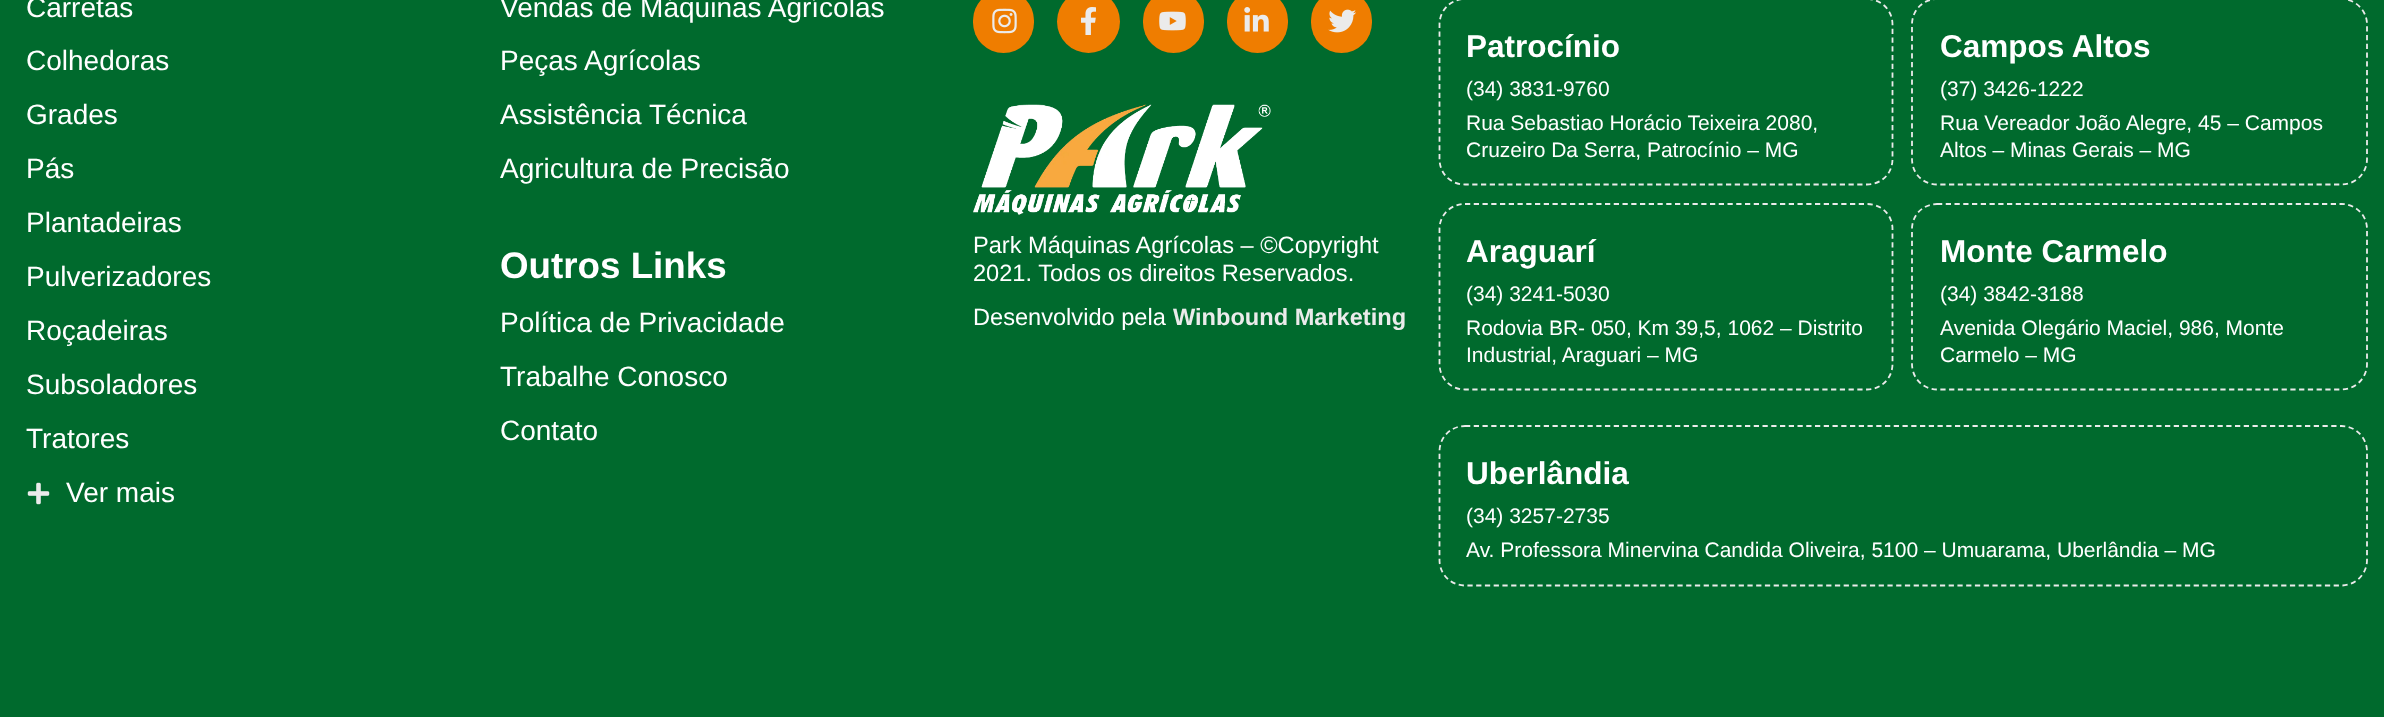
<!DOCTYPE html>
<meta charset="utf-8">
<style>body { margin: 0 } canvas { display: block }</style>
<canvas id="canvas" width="2384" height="717"></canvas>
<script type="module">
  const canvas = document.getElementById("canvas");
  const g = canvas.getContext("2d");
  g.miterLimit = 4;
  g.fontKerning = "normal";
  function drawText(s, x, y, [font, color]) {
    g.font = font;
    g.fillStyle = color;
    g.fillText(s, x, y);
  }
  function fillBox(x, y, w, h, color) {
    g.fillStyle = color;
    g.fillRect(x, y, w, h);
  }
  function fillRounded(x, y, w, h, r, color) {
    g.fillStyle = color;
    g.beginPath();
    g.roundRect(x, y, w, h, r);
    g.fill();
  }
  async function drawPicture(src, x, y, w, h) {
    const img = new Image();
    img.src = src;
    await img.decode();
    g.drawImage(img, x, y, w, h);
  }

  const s1 = ["28px Liberation Sans", "#FFFFFF"];
  const s2 = ["bold 36.75px Liberation Sans", "#FFFFFF"];
  const s3 = ["23.6px Liberation Sans", "#FFFFFF"];
  const s4 = ["bold 23.6px Liberation Sans", "#EBEBEB"];
  const s5 = ["bold 31.5px Liberation Sans", "#FFFFFF"];
  const s6 = ["21px Liberation Sans", "#FFFFFF"];

  fillBox(0, 0, 2384, 717, "#006A2D");
  drawText("Carretas", 26, 17, s1);
  drawText("Colhedoras", 26, 70, s1);
  drawText("Grades", 26, 124, s1);
  drawText("Pás", 26, 178, s1);
  drawText("Plantadeiras", 26, 232, s1);
  drawText("Pulverizadores", 26, 286, s1);
  drawText("Roçadeiras", 26, 340, s1);
  drawText("Subsoladores", 26, 394, s1);
  drawText("Tratores", 26, 448, s1);
  await drawPicture("pic1.png", 27, 482, 23, 23);
  drawText("Ver mais", 66, 502, s1);
  drawText("Vendas de Máquinas Agrícolas", 500, 17, s1);
  drawText("Peças Agrícolas", 500, 70, s1);
  drawText("Assistência Técnica", 500, 124, s1);
  drawText("Agricultura de Precisão", 500, 178, s1);
  drawText("Outros Links", 500, 278, s2);
  drawText("Política de Privacidade", 500, 332, s1);
  drawText("Trabalhe Conosco", 500, 386, s1);
  drawText("Contato", 500, 440, s1);
  fillRounded(973, -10, 61, 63, 30.5, "#EF7D00");
  await drawPicture("pic2.png", 992, 8, 25, 26);
  g.beginPath();
  g.arc(1088.5, 21.5, 31.5, 0, Math.PI * 2);
  g.fill();
  await drawPicture("pic3.png", 1081, 7, 15, 28);
  fillRounded(1143, -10, 61, 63, 30.5, "#EF7D00");
  await drawPicture("pic4.png", 1159, 11, 27, 20);
  fillRounded(1227, -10, 61, 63, 30.5, "#EF7D00");
  await drawPicture("pic5.png", 1244, 7, 25, 25);
  fillRounded(1311, -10, 61, 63, 30.5, "#EF7D00");
  await drawPicture("pic6.png", 1328, 9, 28, 24);
  await drawPicture("pic7.png", 973, 104, 298, 111);
  drawText("Park Máquinas Agrícolas – ©Copyright", 973, 253, s3);
  drawText("2021. Todos os direitos Reservados.", 973, 281, s3);
  drawText("Desenvolvido pela", 973, 325, s3);
  drawText("Winbound Marketing", 1173, 325, s4);
  g.beginPath();
  g.moveTo(1465, -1);
  g.lineTo(1867, -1);
  g.bezierCurveTo(1881.5, -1, 1892.5, 10.5, 1892.5, 24.5);
  g.lineTo(1892.5, 159);
  g.bezierCurveTo(1892.5, 173.5, 1881.5, 184.5, 1867, 184.5);
  g.lineTo(1465, 184.5);
  g.bezierCurveTo(1450.5, 184.5, 1439.5, 173.5, 1439.5, 159);
  g.lineTo(1439.5, 24.5);
  g.bezierCurveTo(1439.5, 10.5, 1450.5, -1, 1465, -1);
  g.closePath();
  g.strokeStyle = "#EBEBEB";
  g.lineWidth = 1.8;
  g.setLineDash([5.25, 3.5]);
  g.stroke();
  drawText("Patrocínio", 1466, 57, s5);
  drawText("(34) 3831-9760", 1466, 96, s6);
  drawText("Rua Sebastiao Horácio Teixeira 2080,", 1466, 130, s6);
  drawText("Cruzeiro Da Serra, Patrocínio – MG", 1466, 157, s6);
  g.beginPath();
  g.moveTo(1937, -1);
  g.lineTo(2341.5, -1);
  g.bezierCurveTo(2355.5, -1, 2367, 10.5, 2367, 24.5);
  g.lineTo(2367, 159);
  g.bezierCurveTo(2367, 173.5, 2355.5, 184.5, 2341.5, 184.5);
  g.lineTo(1937, 184.5);
  g.bezierCurveTo(1923, 184.5, 1912, 173.5, 1912, 159);
  g.lineTo(1912, 24.5);
  g.bezierCurveTo(1912, 10.5, 1923, -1, 1937, -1);
  g.closePath();
  g.stroke();
  drawText("Campos Altos", 1940, 57, s5);
  drawText("(37) 3426-1222", 1940, 96, s6);
  drawText("Rua Vereador João Alegre, 45 – Campos", 1940, 130, s6);
  drawText("Altos – Minas Gerais – MG", 1940, 157, s6);
  g.beginPath();
  g.moveTo(1465, 204);
  g.lineTo(1867, 204);
  g.bezierCurveTo(1881.5, 204, 1892.5, 215, 1892.5, 229);
  g.lineTo(1892.5, 364);
  g.bezierCurveTo(1892.5, 378, 1881.5, 389.5, 1867, 389.5);
  g.lineTo(1465, 389.5);
  g.bezierCurveTo(1450.5, 389.5, 1439.5, 378, 1439.5, 364);
  g.lineTo(1439.5, 229);
  g.bezierCurveTo(1439.5, 215, 1450.5, 204, 1465, 204);
  g.closePath();
  g.stroke();
  drawText("Araguarí", 1466, 262, s5);
  drawText("(34) 3241-5030", 1466, 301, s6);
  drawText("Rodovia BR- 050, Km 39,5, 1062 – Distrito", 1466, 335, s6);
  drawText("Industrial, Araguari – MG", 1466, 362, s6);
  g.beginPath();
  g.moveTo(1937, 204);
  g.lineTo(2341.5, 204);
  g.bezierCurveTo(2355.5, 204, 2367, 215, 2367, 229);
  g.lineTo(2367, 364);
  g.bezierCurveTo(2367, 378, 2355.5, 389.5, 2341.5, 389.5);
  g.lineTo(1937, 389.5);
  g.bezierCurveTo(1923, 389.5, 1912, 378, 1912, 364);
  g.lineTo(1912, 229);
  g.bezierCurveTo(1912, 215, 1923, 204, 1937, 204);
  g.closePath();
  g.stroke();
  drawText("Monte Carmelo", 1940, 262, s5);
  drawText("(34) 3842-3188", 1940, 301, s6);
  drawText("Avenida Olegário Maciel, 986, Monte", 1940, 335, s6);
  drawText("Carmelo – MG", 1940, 362, s6);
  g.beginPath();
  g.moveTo(1465, 426);
  g.lineTo(2341.5, 426);
  g.bezierCurveTo(2355.5, 426, 2367, 437.5, 2367, 451.5);
  g.lineTo(2367, 560);
  g.bezierCurveTo(2367, 574, 2355.5, 585.5, 2341.5, 585.5);
  g.lineTo(1465, 585.5);
  g.bezierCurveTo(1450.5, 585.5, 1439.5, 574, 1439.5, 560);
  g.lineTo(1439.5, 451.5);
  g.bezierCurveTo(1439.5, 437.5, 1450.5, 426, 1465, 426);
  g.closePath();
  g.stroke();
  drawText("Uberlândia", 1466, 484, s5);
  drawText("(34) 3257-2735", 1466, 523, s6);
  drawText("Av. Professora Minervina Candida Oliveira, 5100 – Umuarama, Uberlândia – MG", 1466, 557, s6);
</script>
